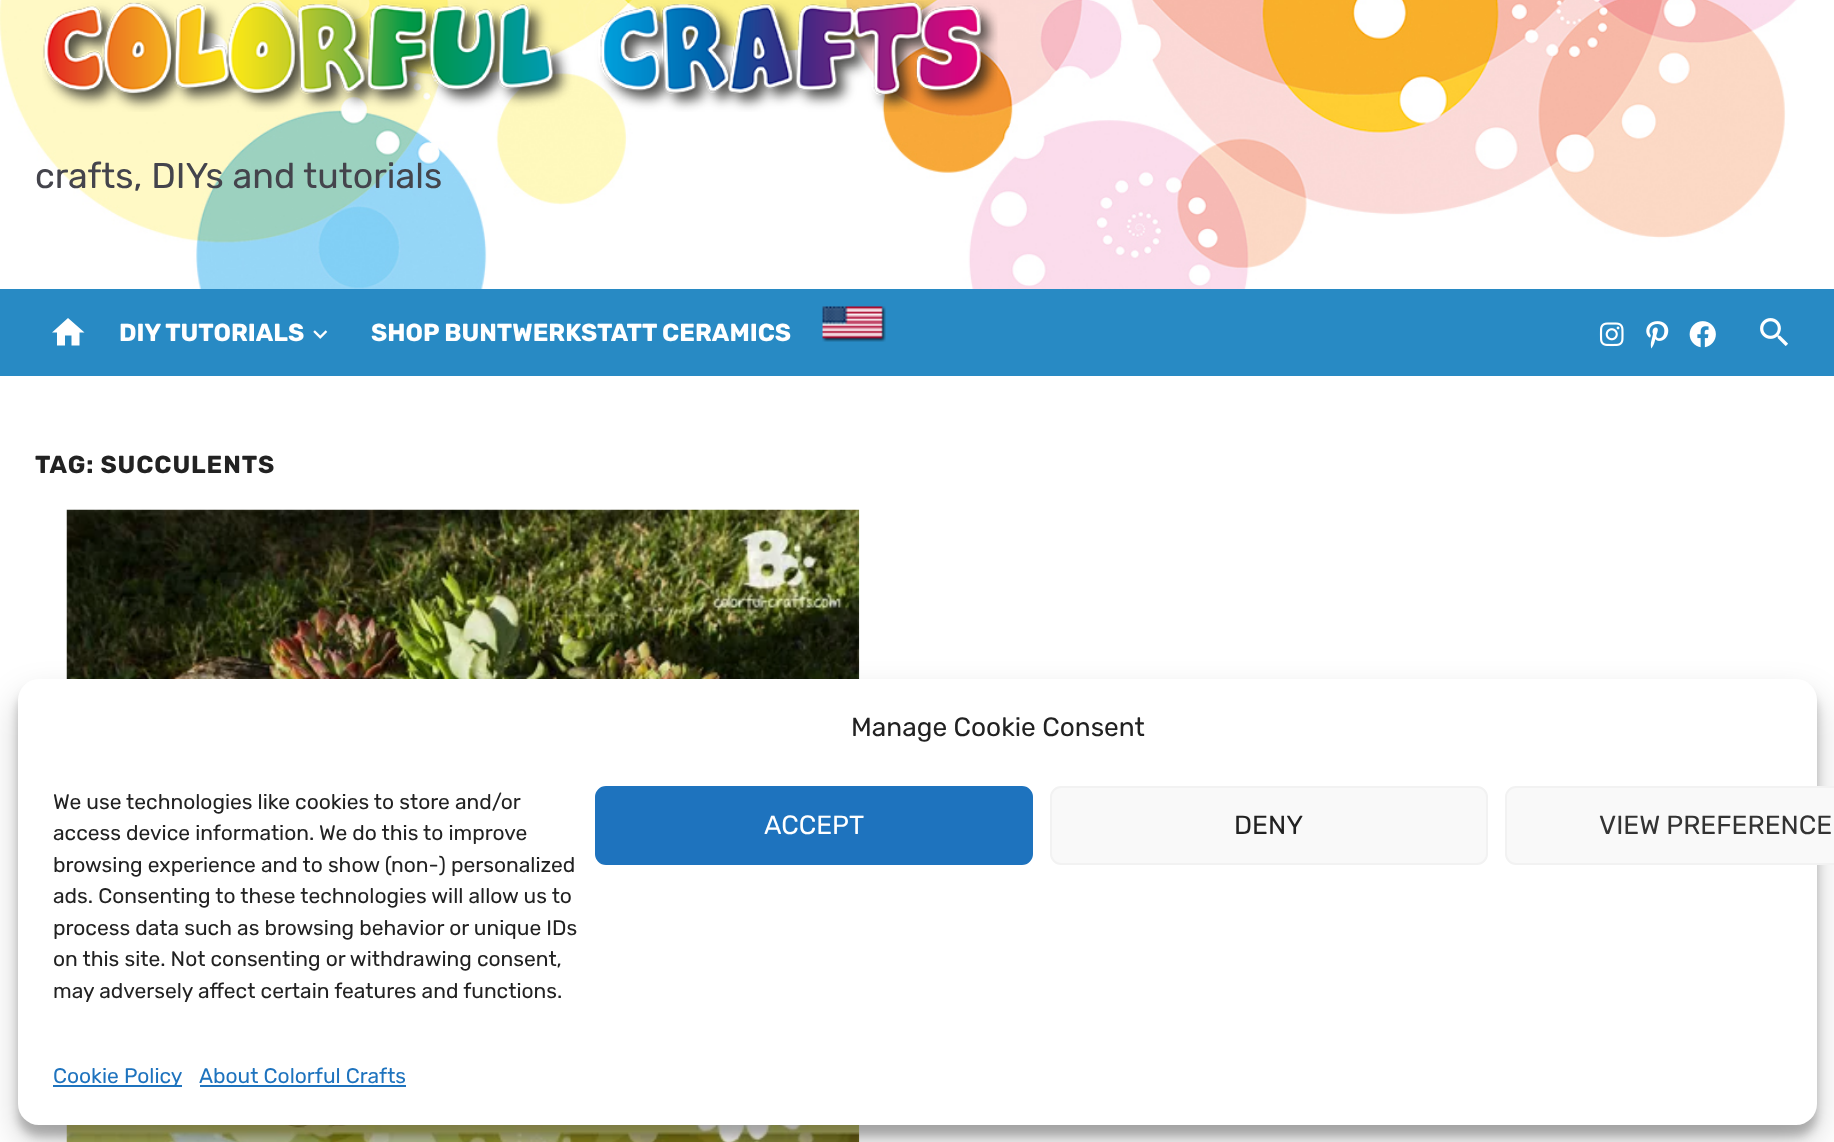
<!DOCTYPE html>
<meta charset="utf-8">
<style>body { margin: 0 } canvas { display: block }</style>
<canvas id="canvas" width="1834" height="1142"></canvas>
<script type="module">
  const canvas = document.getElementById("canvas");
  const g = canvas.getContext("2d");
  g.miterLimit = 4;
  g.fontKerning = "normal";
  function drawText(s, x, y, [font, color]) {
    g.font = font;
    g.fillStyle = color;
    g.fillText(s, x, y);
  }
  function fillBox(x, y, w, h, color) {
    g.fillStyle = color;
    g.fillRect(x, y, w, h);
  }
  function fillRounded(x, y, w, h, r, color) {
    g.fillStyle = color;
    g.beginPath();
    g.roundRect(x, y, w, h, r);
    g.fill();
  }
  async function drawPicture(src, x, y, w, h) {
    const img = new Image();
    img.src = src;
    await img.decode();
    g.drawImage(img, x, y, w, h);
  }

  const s1 = ["35.75px Rubik", "#44444C"];
  const s2 = ["bold 24.5px Rubik", "#FFFFFF"];
  const s3 = ["bold 24.5px Rubik", "#222222"];
  const s4 = ["26.25px Rubik", "#222222"];
  const s5 = ["21px Rubik", "#222222"];
  const s6 = ["26.25px Rubik", "#FFFFFF"];
  const s7 = ["26.25px Rubik", "#333333"];
  const s8 = ["21px Rubik", "#1E73BE"];

  fillBox(0, 0, 1834, 1142, "#FFFFFF");
  await drawPicture("pic1.png", 0, 0, 1797, 289);
  await drawPicture("pic2.png", 42, 1, 956, 111);
  drawText("crafts, DIYs and tutorials", 35, 188, s1);
  fillBox(0, 289, 1834, 87, "#288AC4");
  g.fillStyle = "#FFFFFF";
  g.beginPath();
  g.moveTo(65, 345.5);
  g.lineTo(57, 345.5);
  g.lineTo(57, 332.5);
  g.lineTo(52, 332.5);
  g.lineTo(68, 318);
  g.lineTo(84.5, 332.5);
  g.lineTo(79.5, 332.5);
  g.lineTo(79.5, 345.5);
  g.lineTo(71.5, 345.5);
  g.lineTo(71.5, 335.5);
  g.lineTo(65, 335.5);
  g.closePath();
  g.fill();
  drawText("DIY TUTORIALS", 119, 341, s2);
  await drawPicture("pic3.png", 313, 330, 15, 9);
  drawText("SHOP BUNTWERKSTATT CERAMICS", 371, 341, s2);
  await drawPicture("pic4.png", 822, 306, 64, 36);
  await drawPicture("pic5.png", 1599, 322, 25, 25);
  await drawPicture("pic6.png", 1646, 321, 23, 28);
  await drawPicture("pic7.png", 1689, 321, 27, 27);
  await drawPicture("pic8.png", 1760, 318, 28, 28);
  g.letterSpacing = "0.9px";
  drawText("TAG: SUCCULENTS", 35, 473, s3);
  await drawPicture("pic9.png", 66, 509, 794, 633);
  g.fillStyle = "rgba(0, 0, 0, 0.23)";
  g.filter = "blur(5px)";
  g.beginPath();
  g.roundRect(18, 690, 1799, 446, 21);
  g.fill();
  g.filter = "none";
  g.fillStyle = "rgba(0, 0, 0, 0.19)";
  g.filter = "blur(17.5px)";
  g.beginPath();
  g.roundRect(18, 697, 1799, 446, 21);
  g.fill();
  g.filter = "none";
  fillRounded(18, 679, 1799, 446, 21, "#FFFFFF");
  g.letterSpacing = "0px";
  drawText("Manage Cookie Consent", 851, 736, s4);
  drawText("We use technologies like cookies to store and/or", 53, 809, s5);
  drawText("access device information. We do this to improve", 53, 840, s5);
  drawText("browsing experience and to show (non-) personalized", 53, 872, s5);
  drawText("ads. Consenting to these technologies will allow us to", 53, 903, s5);
  drawText("process data such as browsing behavior or unique IDs", 53, 935, s5);
  drawText("on this site. Not consenting or withdrawing consent,", 53, 966, s5);
  drawText("may adversely affect certain features and functions.", 53, 998, s5);
  g.fillStyle = "#1E73BE";
  g.beginPath();
  g.roundRect(596, 787, 436, 77, 10);
  g.fill();
  g.strokeStyle = "#1E73BE";
  g.lineWidth = 2;
  g.stroke();
  drawText("ACCEPT", 764, 834, s6);
  g.fillStyle = "#F9F9F9";
  g.beginPath();
  g.roundRect(1051, 787, 436, 77, 10);
  g.fill();
  g.strokeStyle = "#F2F2F2";
  g.stroke();
  drawText("DENY", 1234, 834, s4);
  g.fillStyle = "#F9F9F9";
  g.beginPath();
  g.roundRect(1506, 787, 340, 77, 10);
  g.fill();
  g.stroke();
  drawText("VIEW PREFERENCE", 1599, 834, s7);
  fillBox(53, 1085, 129, 2, "#1E73BE");
  drawText("Cookie Policy", 53, 1083, s8);
  drawText("About Colorful Crafts", 199, 1083, s8);
  fillBox(200, 1085, 206, 2, "#1E73BE");
</script>
